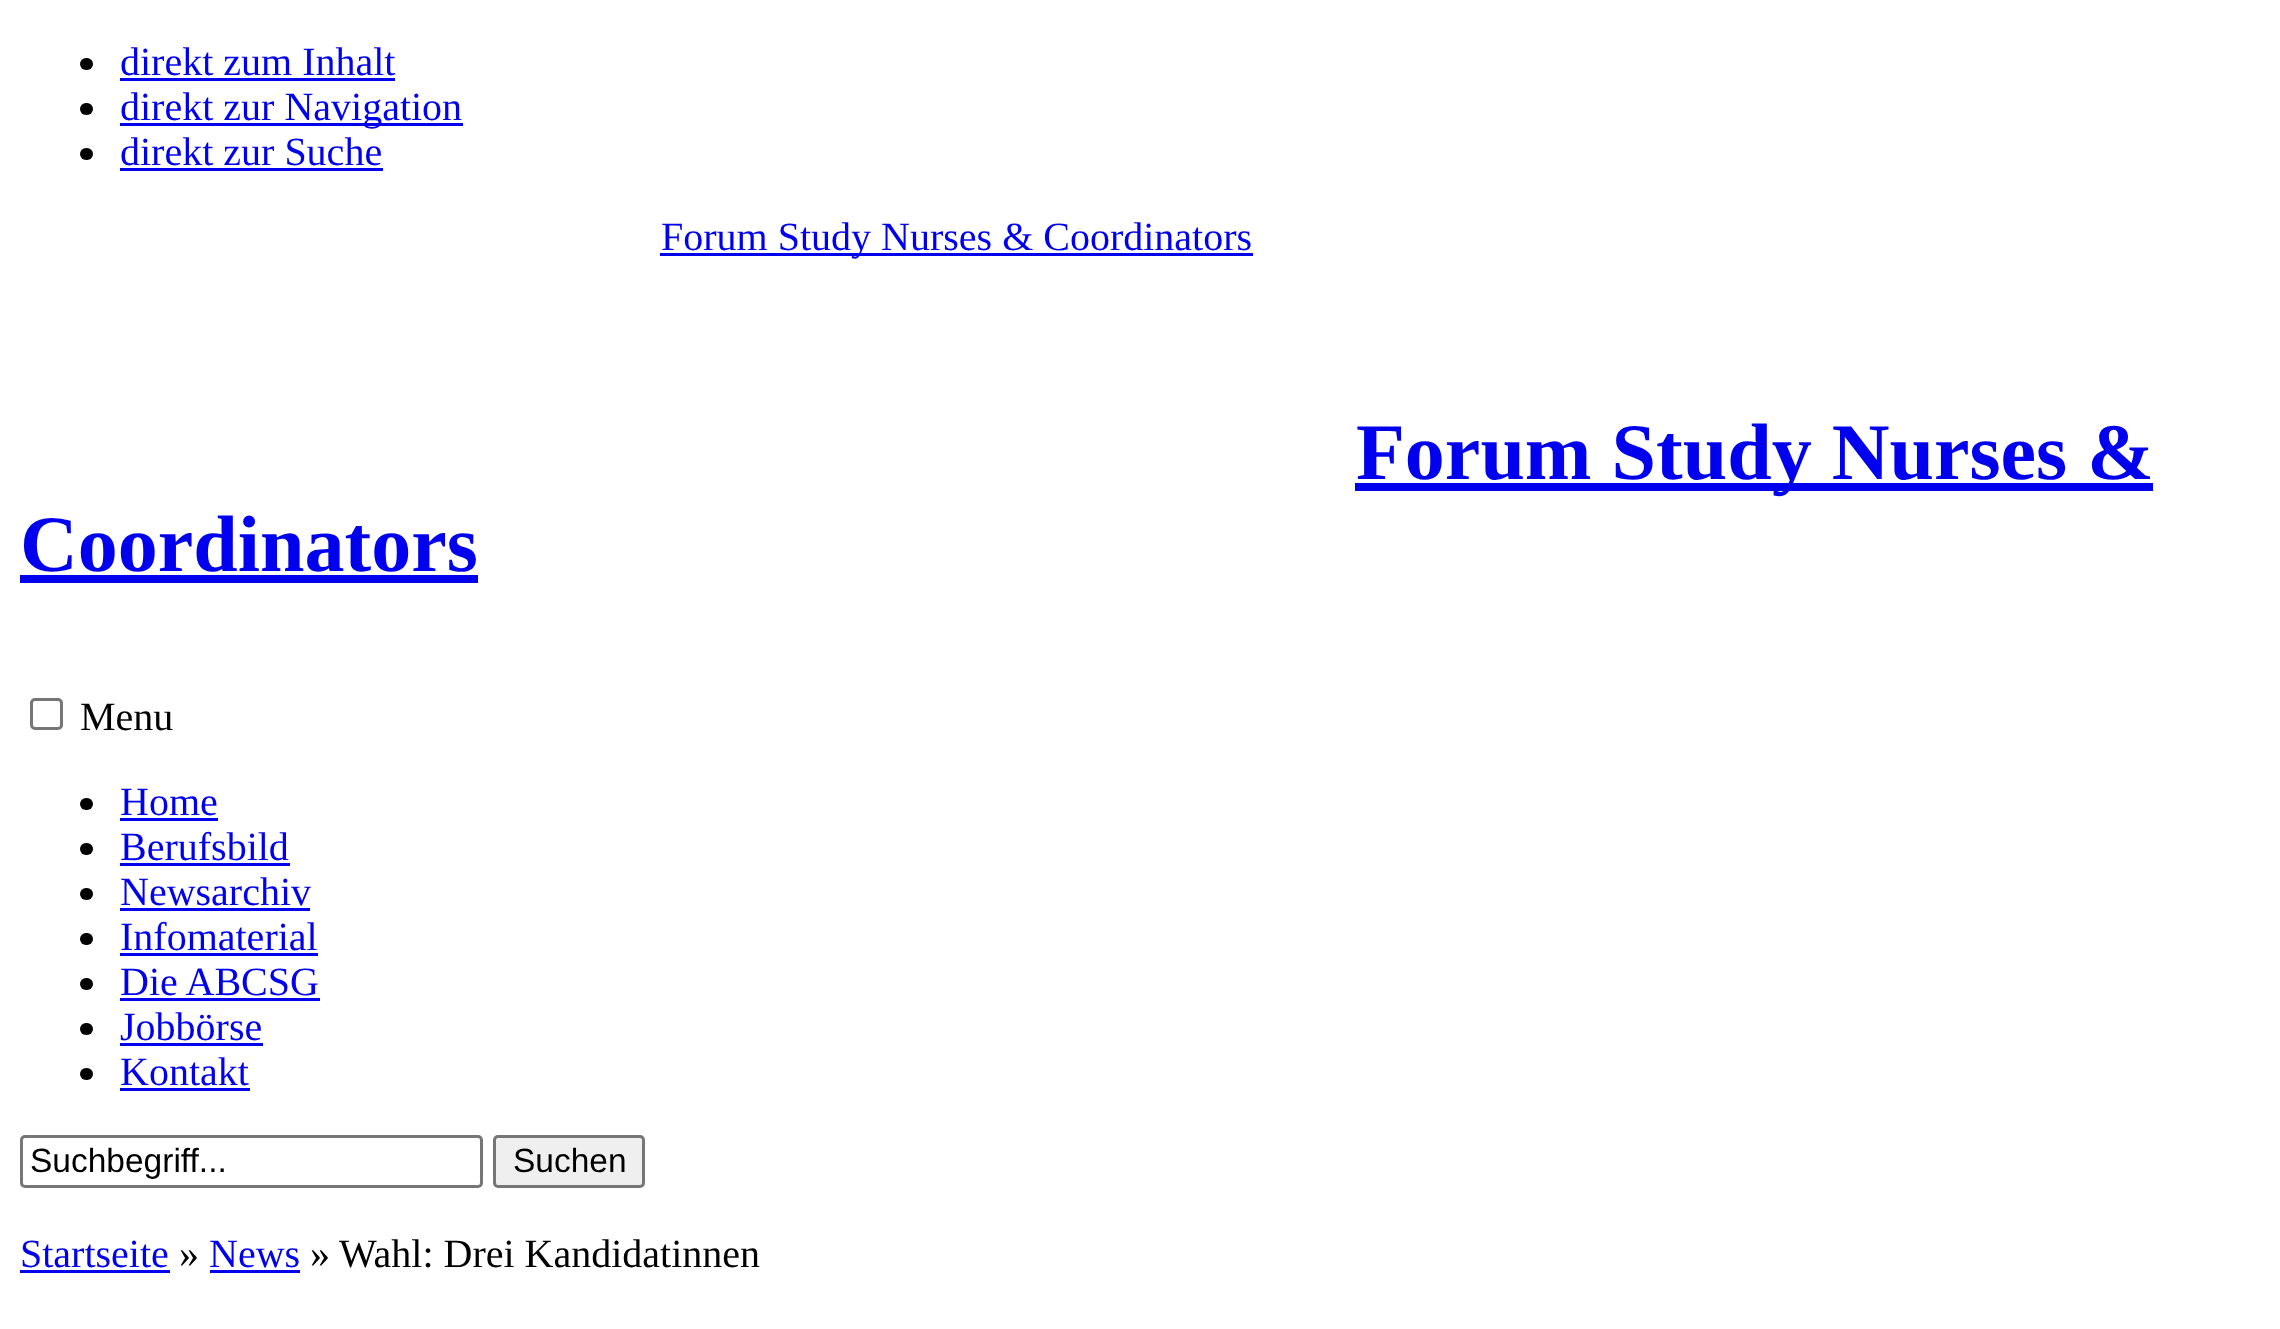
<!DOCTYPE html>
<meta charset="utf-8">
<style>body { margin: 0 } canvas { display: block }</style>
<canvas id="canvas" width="2280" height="1329"></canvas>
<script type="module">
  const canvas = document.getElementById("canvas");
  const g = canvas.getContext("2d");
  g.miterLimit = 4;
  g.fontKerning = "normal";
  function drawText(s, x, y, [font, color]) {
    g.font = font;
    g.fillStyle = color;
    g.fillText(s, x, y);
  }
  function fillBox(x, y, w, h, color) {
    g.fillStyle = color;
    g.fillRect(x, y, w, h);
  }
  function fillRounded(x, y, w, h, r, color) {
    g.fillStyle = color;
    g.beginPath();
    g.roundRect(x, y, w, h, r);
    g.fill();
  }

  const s1 = ["40px Liberation Serif", "#0000EE"];
  const s2 = ["bold 80px Liberation Serif", "#0000EE"];
  const s3 = ["40px Liberation Serif", "#000000"];
  const s4 = ["33.5px Liberation Sans", "#000000"];

  fillBox(0, 0, 2280, 1329, "#FFFFFF");
  fillRounded(80, 58, 13, 12, 6, "#000000");
  drawText("direkt zum Inhalt", 120, 75, s1);
  fillBox(120, 78, 275, 3, "#0000EE");
  fillRounded(80, 103, 13, 12, 6, "#000000");
  fillBox(120, 123, 343, 3, "#0000EE");
  drawText("direkt zur Navigation", 120, 120, s1);
  fillRounded(80, 148, 13, 12, 6, "#000000");
  drawText("direkt zur Suche", 120, 165, s1);
  fillBox(120, 168, 263, 3, "#0000EE");
  fillBox(660, 253, 593, 3, "#0000EE");
  drawText("Forum Study Nurses & Coordinators", 661, 250, s1);
  fillBox(1355, 483, 798, 8, "#0000EE");
  drawText("Forum Study Nurses &", 1356, 479, s2);
  drawText("Coordinators", 20, 571, s2);
  fillBox(20, 575, 458, 8, "#0000EE");
  g.beginPath();
  g.roundRect(31.5, 699.5, 30, 29, 3.5);
  g.strokeStyle = "#767676";
  g.lineWidth = 3;
  g.stroke();
  drawText("Menu", 80, 730, s3);
  fillRounded(80, 798, 13, 12, 6, "#000000");
  drawText("Home", 120, 815, s1);
  fillBox(120, 818, 98, 3, "#0000EE");
  fillRounded(80, 843, 13, 12, 6, "#000000");
  drawText("Berufsbild", 120, 860, s1);
  fillBox(120, 863, 170, 3, "#0000EE");
  fillRounded(80, 888, 13, 12, 6, "#000000");
  drawText("Newsarchiv", 120, 905, s1);
  fillBox(120, 908, 190, 3, "#0000EE");
  fillRounded(80, 933, 13, 12, 6, "#000000");
  drawText("Infomaterial", 120, 950, s1);
  fillBox(120, 953, 198, 3, "#0000EE");
  fillRounded(80, 978, 13, 12, 6, "#000000");
  drawText("Die ABCSG", 120, 995, s1);
  fillBox(120, 998, 200, 3, "#0000EE");
  fillRounded(80, 1023, 13, 12, 6, "#000000");
  drawText("Jobbörse", 120, 1040, s1);
  fillBox(120, 1043, 143, 3, "#0000EE");
  fillRounded(80, 1068, 13, 12, 6, "#000000");
  drawText("Kontakt", 120, 1085, s1);
  fillBox(120, 1088, 130, 3, "#0000EE");
  g.beginPath();
  g.roundRect(21.5, 1136.5, 460, 50, 3.5);
  g.stroke();
  drawText("Suchbegriff...", 30, 1172, s4);
  g.fillStyle = "#EFEFEF";
  g.beginPath();
  g.roundRect(494.5, 1136.5, 149, 50, 3.5);
  g.fill();
  g.stroke();
  drawText("Suchen", 513, 1172, s4);
  drawText("Startseite", 20, 1267, s1);
  fillBox(20, 1270, 150, 3, "#0000EE");
  drawText("»", 179, 1267, s3);
  drawText("News", 209, 1267, s1);
  fillBox(210, 1270, 90, 3, "#0000EE");
  drawText("»", 310, 1267, s3);
  drawText("Wahl: Drei Kandidatinnen", 339, 1267, s3);
</script>
